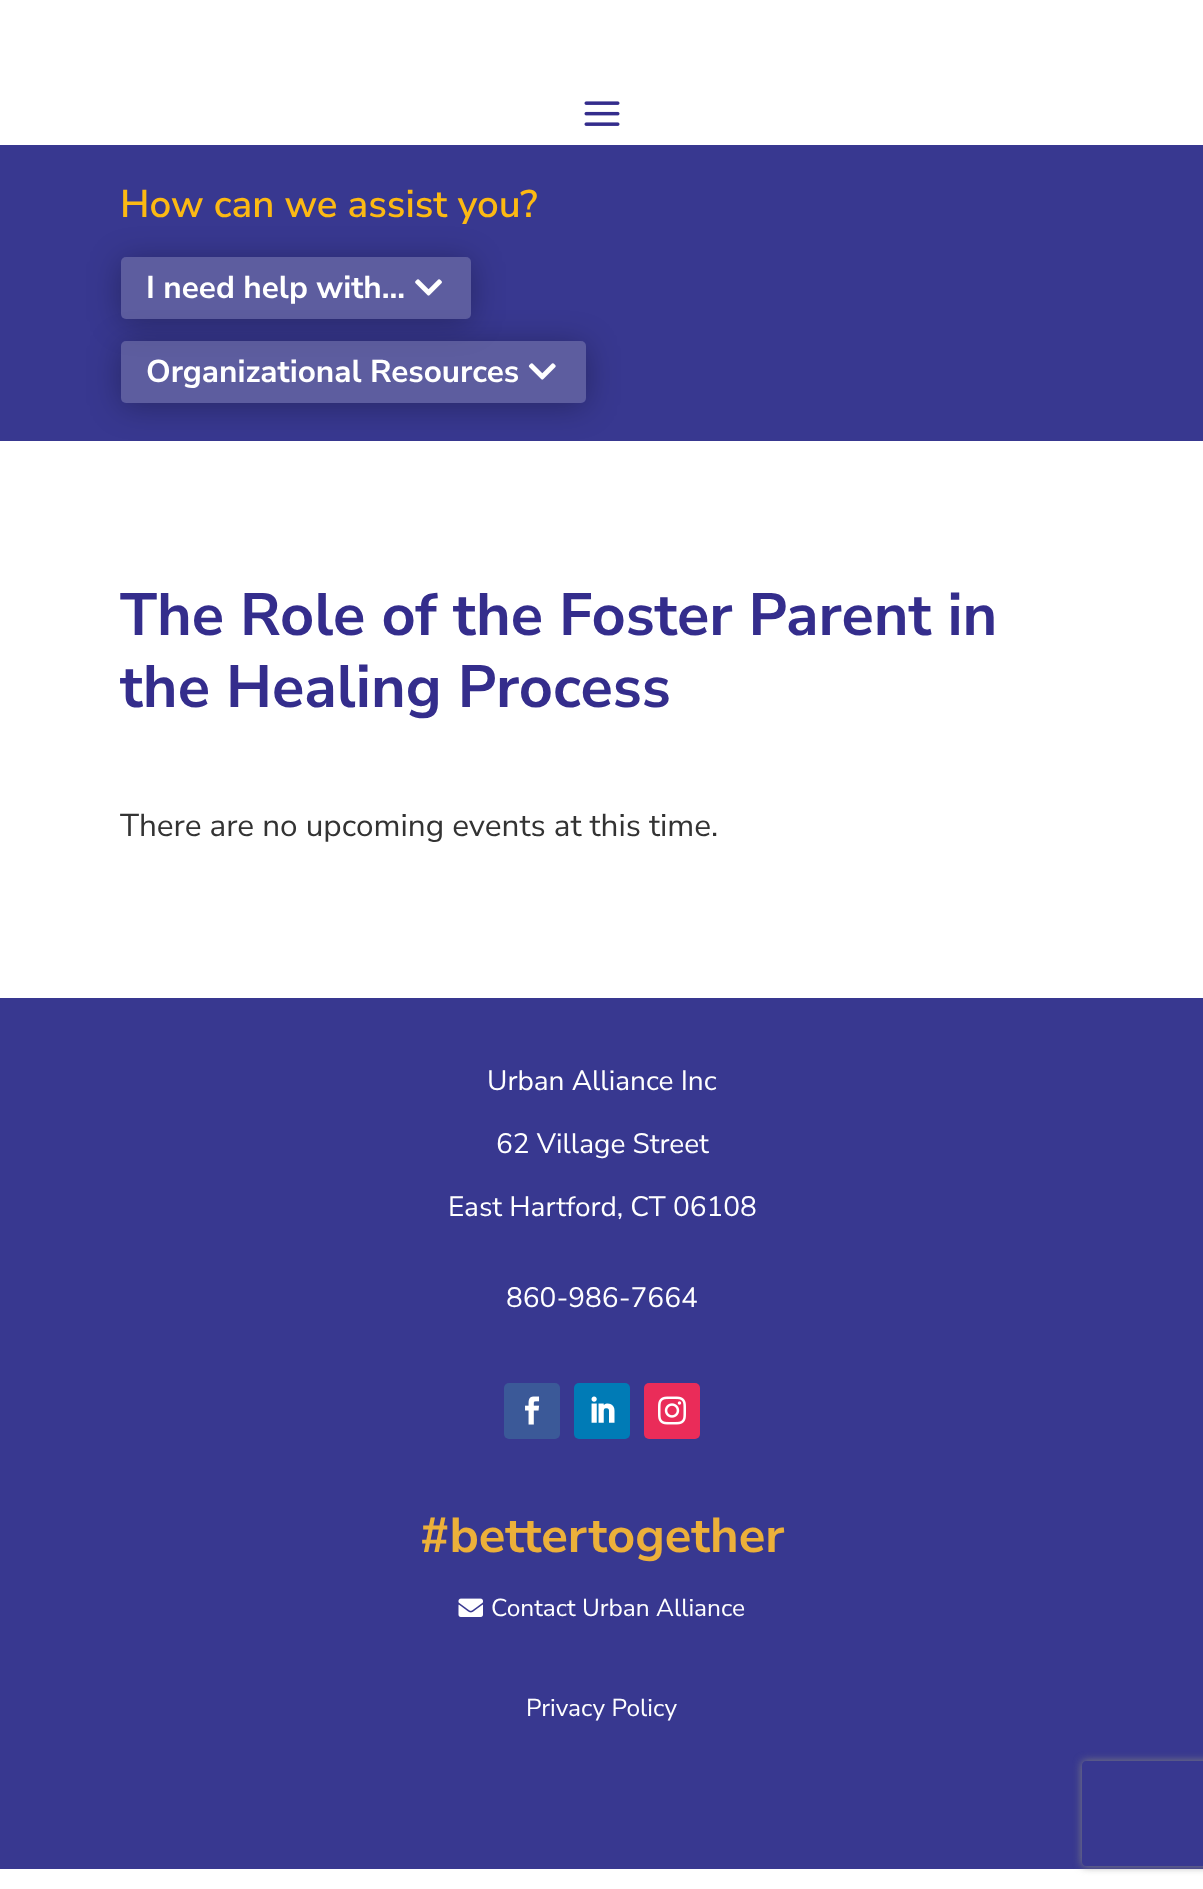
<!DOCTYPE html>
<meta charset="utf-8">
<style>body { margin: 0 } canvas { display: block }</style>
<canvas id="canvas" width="1203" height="1889"></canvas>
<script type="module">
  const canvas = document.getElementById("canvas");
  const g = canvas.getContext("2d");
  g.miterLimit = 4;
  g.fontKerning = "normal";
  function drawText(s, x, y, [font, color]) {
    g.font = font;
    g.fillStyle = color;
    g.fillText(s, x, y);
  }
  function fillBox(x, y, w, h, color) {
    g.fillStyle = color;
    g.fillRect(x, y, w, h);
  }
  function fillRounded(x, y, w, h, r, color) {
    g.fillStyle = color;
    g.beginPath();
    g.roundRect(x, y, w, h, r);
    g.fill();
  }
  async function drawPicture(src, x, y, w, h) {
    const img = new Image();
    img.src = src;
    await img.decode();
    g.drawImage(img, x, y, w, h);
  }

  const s1 = ["600 38.5px Nunito Sans", "#FCB913"];
  const s2 = ["bold 31.5px Nunito Sans", "#FFFFFF"];
  const s3 = ["bold 59.5px Nunito Sans", "#342D8C"];
  const s4 = ["31.5px Nunito Sans", "#333333"];
  const s5 = ["28px Nunito Sans", "#FFFFFF"];
  const s6 = ["bold 49px Nunito Sans", "#ECB03A"];
  const s7 = ["24.5px Nunito Sans", "#FFFFFF"];

  fillBox(0, 0, 1203, 1889, "#FFFFFF");
  await drawPicture("pic1.png", 584, 101, 36, 25);
  fillBox(0, 145, 1203, 296, "#383890");
  drawText("How can we assist you?", 120, 217, s1);
  g.save();
  g.beginPath();
  g.moveTo(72, 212);
  g.lineTo(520, 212);
  g.lineTo(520, 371);
  g.lineTo(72, 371);
  g.closePath();
  g.moveTo(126, 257);
  g.lineTo(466, 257);
  g.bezierCurveTo(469, 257, 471, 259, 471, 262);
  g.lineTo(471, 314);
  g.bezierCurveTo(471, 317, 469, 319, 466, 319);
  g.lineTo(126, 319);
  g.bezierCurveTo(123, 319, 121, 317, 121, 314);
  g.lineTo(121, 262);
  g.bezierCurveTo(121, 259, 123, 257, 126, 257);
  g.closePath();
  g.clip("evenodd");
  g.fillStyle = "rgba(0, 0, 0, 0.3)";
  g.filter = "blur(16px)";
  g.beginPath();
  g.roundRect(121, 261, 350, 61, 5);
  g.fill();
  g.filter = "none";
  g.restore();
  fillRounded(121, 257, 350, 62, 5, "rgba(204, 204, 204, 0.25)");
  drawText("I need help with...", 146, 298, s2);
  await drawPicture("pic2.png", 415, 279, 27, 17);
  g.save();
  g.beginPath();
  g.moveTo(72, 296);
  g.lineTo(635, 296);
  g.lineTo(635, 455);
  g.lineTo(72, 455);
  g.closePath();
  g.moveTo(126, 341);
  g.lineTo(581, 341);
  g.bezierCurveTo(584, 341, 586, 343, 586, 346);
  g.lineTo(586, 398);
  g.bezierCurveTo(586, 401, 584, 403, 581, 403);
  g.lineTo(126, 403);
  g.bezierCurveTo(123, 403, 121, 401, 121, 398);
  g.lineTo(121, 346);
  g.bezierCurveTo(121, 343, 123, 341, 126, 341);
  g.closePath();
  g.clip("evenodd");
  g.fillStyle = "rgba(0, 0, 0, 0.3)";
  g.filter = "blur(16px)";
  g.beginPath();
  g.roundRect(121, 345, 465, 61, 5);
  g.fill();
  g.filter = "none";
  g.restore();
  fillRounded(121, 341, 465, 62, 5, "rgba(204, 204, 204, 0.25)");
  drawText("Organizational Resources", 146, 382, s2);
  await drawPicture("pic3.png", 528, 363, 28, 17);
  drawText("The Role of the Foster Parent in", 120, 635, s3);
  drawText("the Healing Process", 120, 707, s3);
  drawText("There are no upcoming events at this time.", 120, 836, s4);
  fillBox(0, 998, 1203, 871, "#383890");
  drawText("Urban Alliance Inc", 487, 1090, s5);
  drawText("62 Village Street", 496, 1153, s5);
  drawText("East Hartford, CT 06108", 448, 1216, s5);
  drawText("860-986-7664", 506, 1307, s5);
  fillRounded(504, 1383, 56, 56, 5, "#3B5998");
  await drawPicture("pic4.png", 525, 1396, 15, 29);
  fillRounded(574, 1383, 56, 56, 5, "#007BB6");
  await drawPicture("pic5.png", 591, 1396, 24, 27);
  fillRounded(644, 1383, 56, 56, 5, "#EA2C59");
  await drawPicture("pic6.png", 658, 1396, 28, 29);
  drawText("#bettertogether", 420, 1552, s6);
  await drawPicture("pic7.png", 458, 1598, 25, 19);
  drawText("Contact Urban Alliance", 491, 1616, s7);
  drawText("Privacy Policy", 526, 1716, s7);
  g.save();
  g.beginPath();
  g.moveTo(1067, 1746);
  g.lineTo(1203, 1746);
  g.lineTo(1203, 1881);
  g.lineTo(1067, 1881);
  g.closePath();
  g.moveTo(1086, 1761);
  g.lineTo(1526, 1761);
  g.bezierCurveTo(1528, 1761, 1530, 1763, 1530, 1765);
  g.lineTo(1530, 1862);
  g.bezierCurveTo(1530, 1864, 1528, 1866, 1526, 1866);
  g.lineTo(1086, 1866);
  g.bezierCurveTo(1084, 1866, 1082, 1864, 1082, 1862);
  g.lineTo(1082, 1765);
  g.bezierCurveTo(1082, 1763, 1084, 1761, 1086, 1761);
  g.closePath();
  g.clip("evenodd");
  g.fillStyle = "#808080";
  g.filter = "blur(4.5px)";
  g.beginPath();
  g.roundRect(1082, 1761, 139, 105, 4);
  g.fill();
  g.filter = "none";
  g.restore();
</script>
